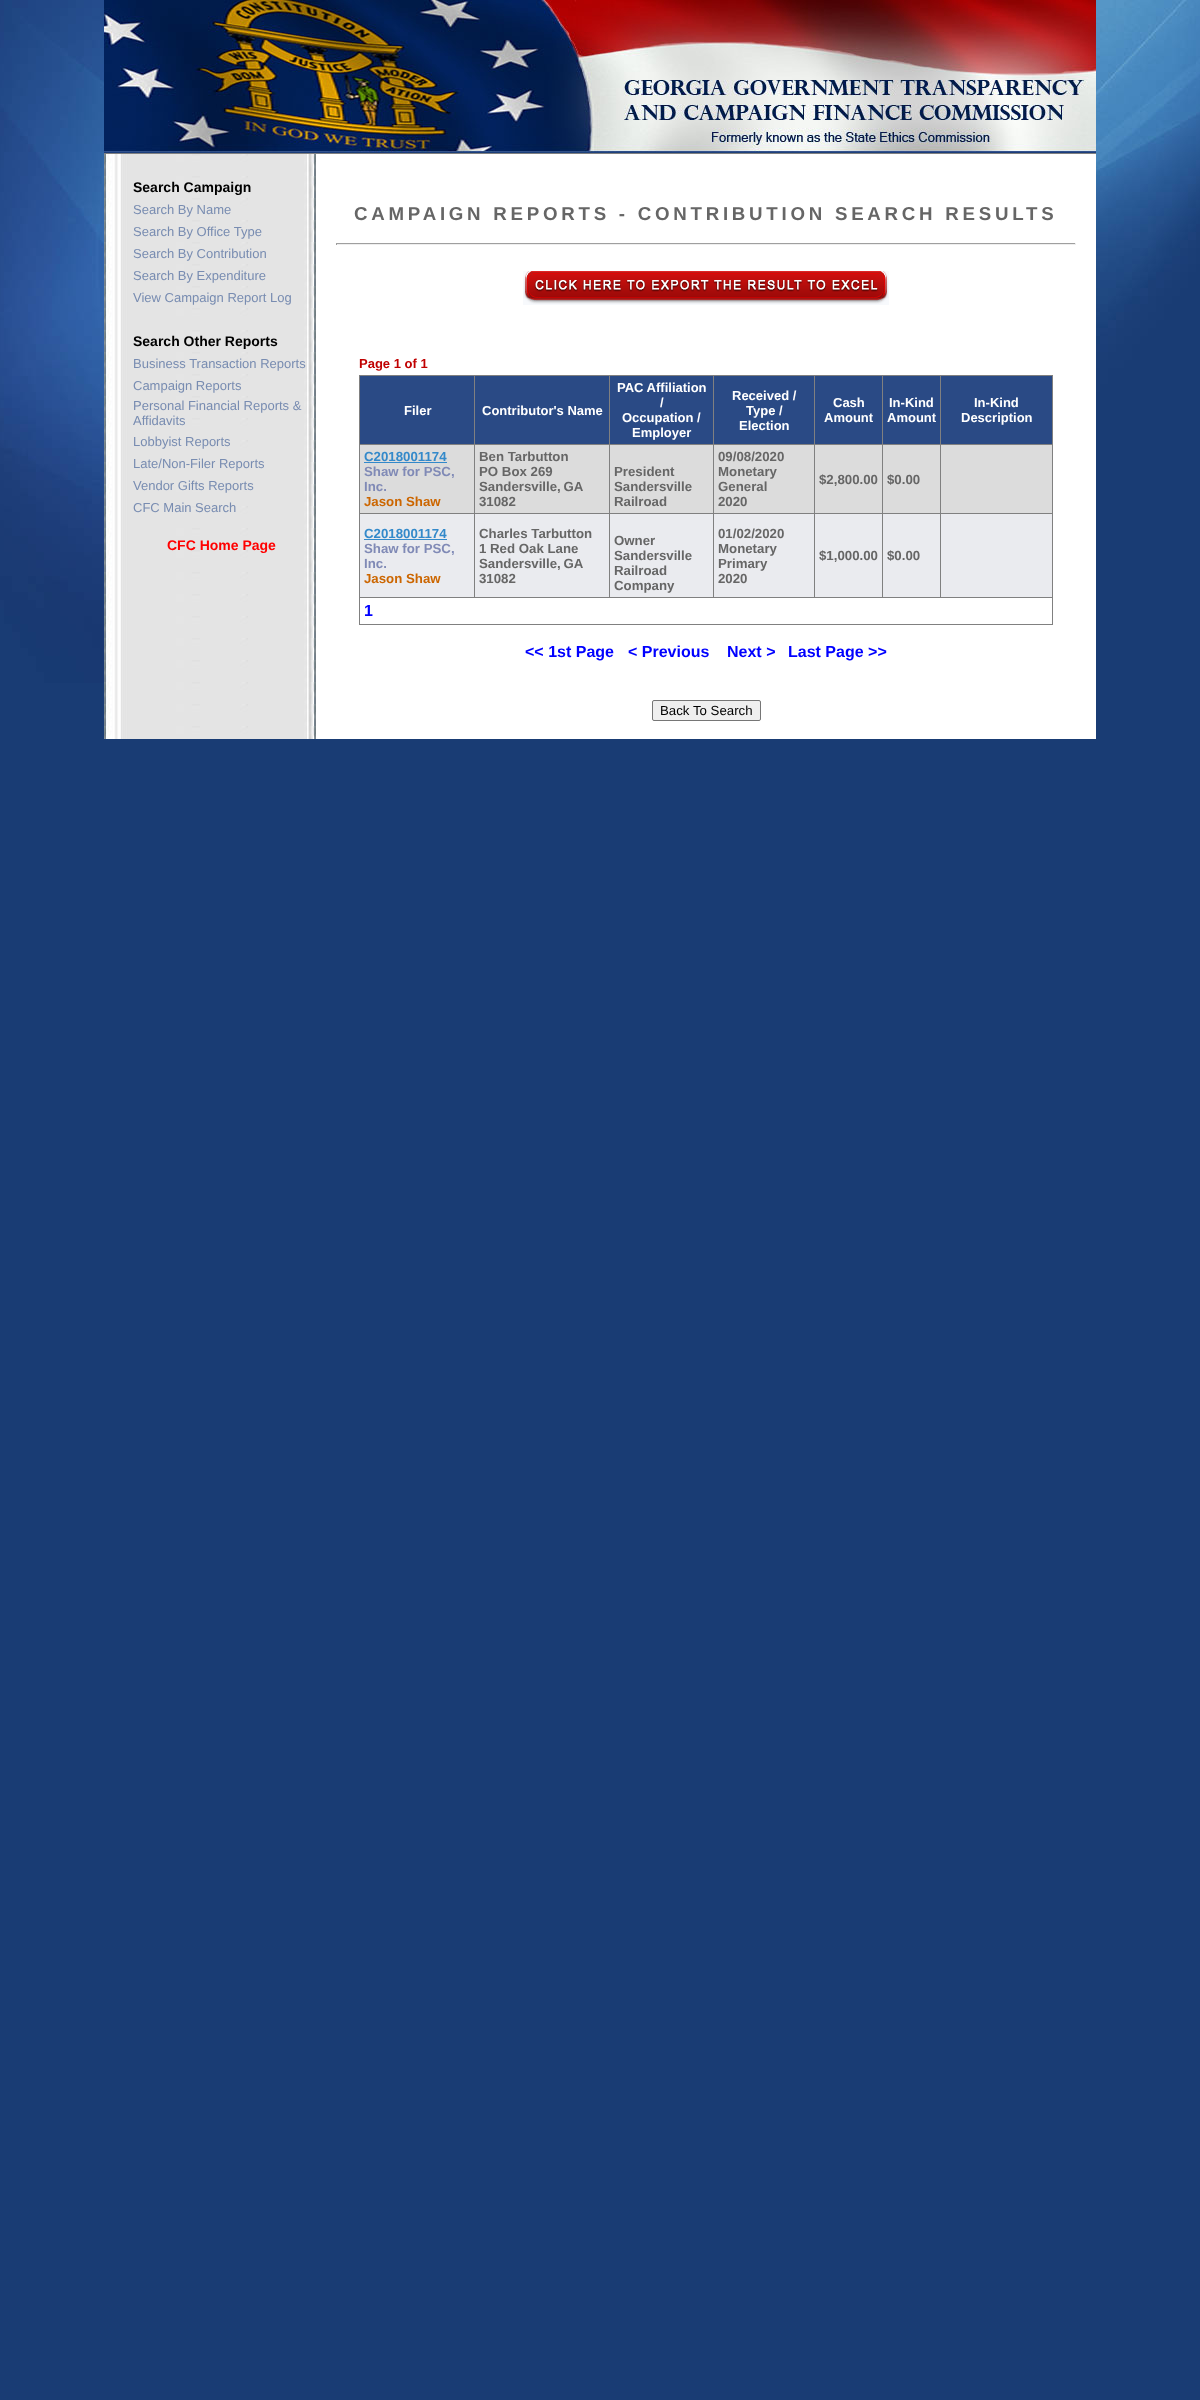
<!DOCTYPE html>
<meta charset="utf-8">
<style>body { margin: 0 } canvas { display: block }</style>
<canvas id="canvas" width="1200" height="2400"></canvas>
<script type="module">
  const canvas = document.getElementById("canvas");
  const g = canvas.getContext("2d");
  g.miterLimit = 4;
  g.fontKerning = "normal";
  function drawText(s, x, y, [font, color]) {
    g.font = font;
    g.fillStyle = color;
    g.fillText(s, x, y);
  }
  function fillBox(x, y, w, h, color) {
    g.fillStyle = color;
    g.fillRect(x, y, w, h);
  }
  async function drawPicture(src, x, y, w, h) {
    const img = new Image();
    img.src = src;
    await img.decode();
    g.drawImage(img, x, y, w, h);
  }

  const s1 = ["bold 14px Liberation Sans", "#000000"];
  const s2 = ["13px Liberation Sans", "#788CB1"];
  const s3 = ["bold 14px Liberation Sans", "#FF0000"];
  const s4 = ["bold 18.7px Liberation Sans", "#666666"];
  const s5 = ["bold 13px Liberation Sans", "#C00000"];
  const s6 = ["bold 13px Liberation Sans", "#FFFFFF"];
  const s7 = ["bold 13.25px Liberation Sans", "#3389CA"];
  const s8 = ["bold 13.25px Liberation Sans", "#808AB6"];
  const s9 = ["bold 13.25px Liberation Sans", "#CC6600"];
  const s10 = ["bold 13.25px Liberation Sans", "#666666"];
  const s11 = ["bold 16px Liberation Sans", "#0000FF"];
  const s12 = ["13.25px Liberation Sans", "#000000"];

  fillBox(0, 0, 1200, 2400, "#193C74");
  await drawPicture("pic1.png", 0, 0, 1200, 683);
  await drawPicture("pic2.png", 104, 0, 992, 153);
  fillBox(104, 153, 992, 1, "#808080");
  await drawPicture("pic3.png", 104, 154, 212, 585);
  drawText("Search Campaign", 133, 192, s1);
  drawText("Search By Name", 133, 214, s2);
  drawText("Search By Office Type", 133, 236, s2);
  drawText("Search By Contribution", 133, 258, s2);
  drawText("Search By Expenditure", 133, 280, s2);
  drawText("View Campaign Report Log", 133, 302, s2);
  drawText("Search Other Reports", 133, 346, s1);
  drawText("Business Transaction Reports", 133, 368, s2);
  drawText("Campaign Reports", 133, 390, s2);
  drawText("Personal Financial Reports &", 133, 410, s2);
  drawText("Affidavits", 133, 425, s2);
  drawText("Lobbyist Reports", 133, 446, s2);
  drawText("Late/Non-Filer Reports", 133, 468, s2);
  drawText("Vendor Gifts Reports", 133, 490, s2);
  drawText("CFC Main Search", 133, 512, s2);
  drawText("CFC Home Page", 167, 550, s3);
  fillBox(316, 154, 780, 585, "#FFFFFF");
  g.letterSpacing = "3.75px";
  drawText("CAMPAIGN REPORTS - CONTRIBUTION SEARCH RESULTS", 354, 220, s4);
  fillBox(336, 243, 740, 1, "#9F9F9F");
  fillBox(1075, 243, 1, 2, "#EEEEEE");
  fillBox(336, 244, 740, 1, "#EEEEEE");
  fillBox(336, 243, 1, 2, "#9F9F9F");
  await drawPicture("pic4.png", 523, 271, 366, 34);
  g.letterSpacing = "0px";
  drawText("Page 1 of 1", 359, 368, s5);
  fillBox(359, 375, 694, 1, "#808080");
  fillBox(1052, 375, 1, 250, "#808080");
  fillBox(359, 624, 694, 1, "#808080");
  fillBox(359, 375, 1, 250, "#808080");
  fillBox(360, 376, 114, 68, "#2A4A85");
  drawText("Filer", 404, 415, s6);
  fillBox(475, 376, 134, 68, "#2A4A85");
  fillBox(940, 444, 113, 1, "#808080");
  fillBox(360, 445, 692, 68, "#DCDCDC");
  fillBox(940, 513, 113, 1, "#808080");
  fillBox(360, 514, 692, 83, "#EAEBEF");
  fillBox(359, 597, 694, 1, "#808080");
  fillBox(940, 513, 1, 85, "#808080");
  fillBox(882, 513, 59, 1, "#808080");
  fillBox(940, 444, 1, 70, "#808080");
  fillBox(882, 444, 59, 1, "#808080");
  fillBox(882, 513, 1, 85, "#808080");
  fillBox(814, 513, 69, 1, "#808080");
  fillBox(882, 444, 1, 70, "#808080");
  fillBox(814, 444, 69, 1, "#808080");
  fillBox(814, 513, 1, 85, "#808080");
  fillBox(713, 513, 102, 1, "#808080");
  fillBox(814, 444, 1, 70, "#808080");
  fillBox(713, 444, 102, 1, "#808080");
  fillBox(713, 513, 1, 85, "#808080");
  fillBox(609, 513, 105, 1, "#808080");
  fillBox(713, 444, 1, 70, "#808080");
  fillBox(609, 444, 105, 1, "#808080");
  fillBox(609, 513, 1, 85, "#808080");
  fillBox(474, 513, 136, 1, "#808080");
  fillBox(609, 444, 1, 70, "#808080");
  fillBox(474, 444, 136, 1, "#808080");
  fillBox(474, 513, 1, 85, "#808080");
  fillBox(359, 513, 116, 1, "#808080");
  fillBox(474, 444, 1, 70, "#808080");
  fillBox(359, 444, 116, 1, "#808080");
  fillBox(474, 375, 1, 70, "#808080");
  drawText("Contributor's Name", 482, 415, s6);
  fillBox(610, 376, 103, 68, "#2A4A85");
  fillBox(609, 375, 1, 70, "#808080");
  drawText("PAC Affiliation", 617, 392, s6);
  drawText("/", 660, 407, s6);
  drawText("Occupation /", 622, 422, s6);
  drawText("Employer", 632, 437, s6);
  fillBox(714, 376, 100, 68, "#2A4A85");
  fillBox(713, 375, 1, 70, "#808080");
  drawText("Received /", 732, 400, s6);
  drawText("Type /", 746, 415, s6);
  drawText("Election", 739, 430, s6);
  fillBox(815, 376, 67, 68, "#2A4A85");
  fillBox(814, 375, 1, 70, "#808080");
  drawText("Cash", 833, 407, s6);
  drawText("Amount", 824, 422, s6);
  fillBox(883, 376, 57, 68, "#2A4A85");
  fillBox(882, 375, 1, 70, "#808080");
  drawText("In-Kind", 889, 407, s6);
  drawText("Amount", 887, 422, s6);
  fillBox(941, 376, 111, 68, "#2A4A85");
  fillBox(940, 375, 1, 70, "#808080");
  drawText("In-Kind", 974, 407, s6);
  drawText("Description", 961, 422, s6);
  drawText("C2018001174", 364, 461, s7);
  fillBox(364, 462, 83, 1, "#3389CA");
  drawText("Shaw for PSC,", 364, 476, s8);
  drawText("Inc.", 364, 491, s8);
  drawText("Jason Shaw", 364, 506, s9);
  drawText("Ben Tarbutton", 479, 461, s10);
  drawText("PO Box 269", 479, 476, s10);
  g.wordSpacing = "-1px";
  drawText("Sandersville, GA", 479, 491, s10);
  g.wordSpacing = "0px";
  drawText("31082", 479, 506, s10);
  drawText("President", 614, 476, s10);
  drawText("Sandersville", 614, 491, s10);
  drawText("Railroad", 614, 506, s10);
  drawText("09/08/2020", 718, 461, s10);
  drawText("Monetary", 718, 476, s10);
  drawText("General", 718, 491, s10);
  drawText("2020", 718, 506, s10);
  drawText("$2,800.00", 819, 484, s10);
  drawText("$0.00", 887, 484, s10);
  drawText("C2018001174", 364, 538, s7);
  fillBox(364, 539, 83, 1, "#3389CA");
  drawText("Shaw for PSC,", 364, 553, s8);
  drawText("Inc.", 364, 568, s8);
  drawText("Jason Shaw", 364, 583, s9);
  drawText("Charles Tarbutton", 479, 538, s10);
  drawText("1 Red Oak Lane", 479, 553, s10);
  g.wordSpacing = "-1px";
  drawText("Sandersville, GA", 479, 568, s10);
  g.wordSpacing = "0px";
  drawText("31082", 479, 583, s10);
  drawText("Owner", 614, 545, s10);
  drawText("Sandersville", 614, 560, s10);
  drawText("Railroad", 614, 575, s10);
  drawText("Company", 614, 590, s10);
  drawText("01/02/2020", 718, 538, s10);
  drawText("Monetary", 718, 553, s10);
  drawText("Primary", 718, 568, s10);
  drawText("2020", 718, 583, s10);
  drawText("$1,000.00", 819, 560, s10);
  drawText("$0.00", 887, 560, s10);
  drawText("1", 364, 616, s11);
  drawText("<< 1st Page", 525, 657, s11);
  drawText("< Previous", 628, 657, s11);
  drawText("Next >", 727, 657, s11);
  drawText("Last Page >>", 788, 657, s11);
  g.fillStyle = "#EFEFEF";
  g.beginPath();
  g.roundRect(652.5, 700.5, 108, 20, 1.5);
  g.fill();
  g.strokeStyle = "#767676";
  g.stroke();
  drawText("Back To Search", 660, 715, s12);
</script>
